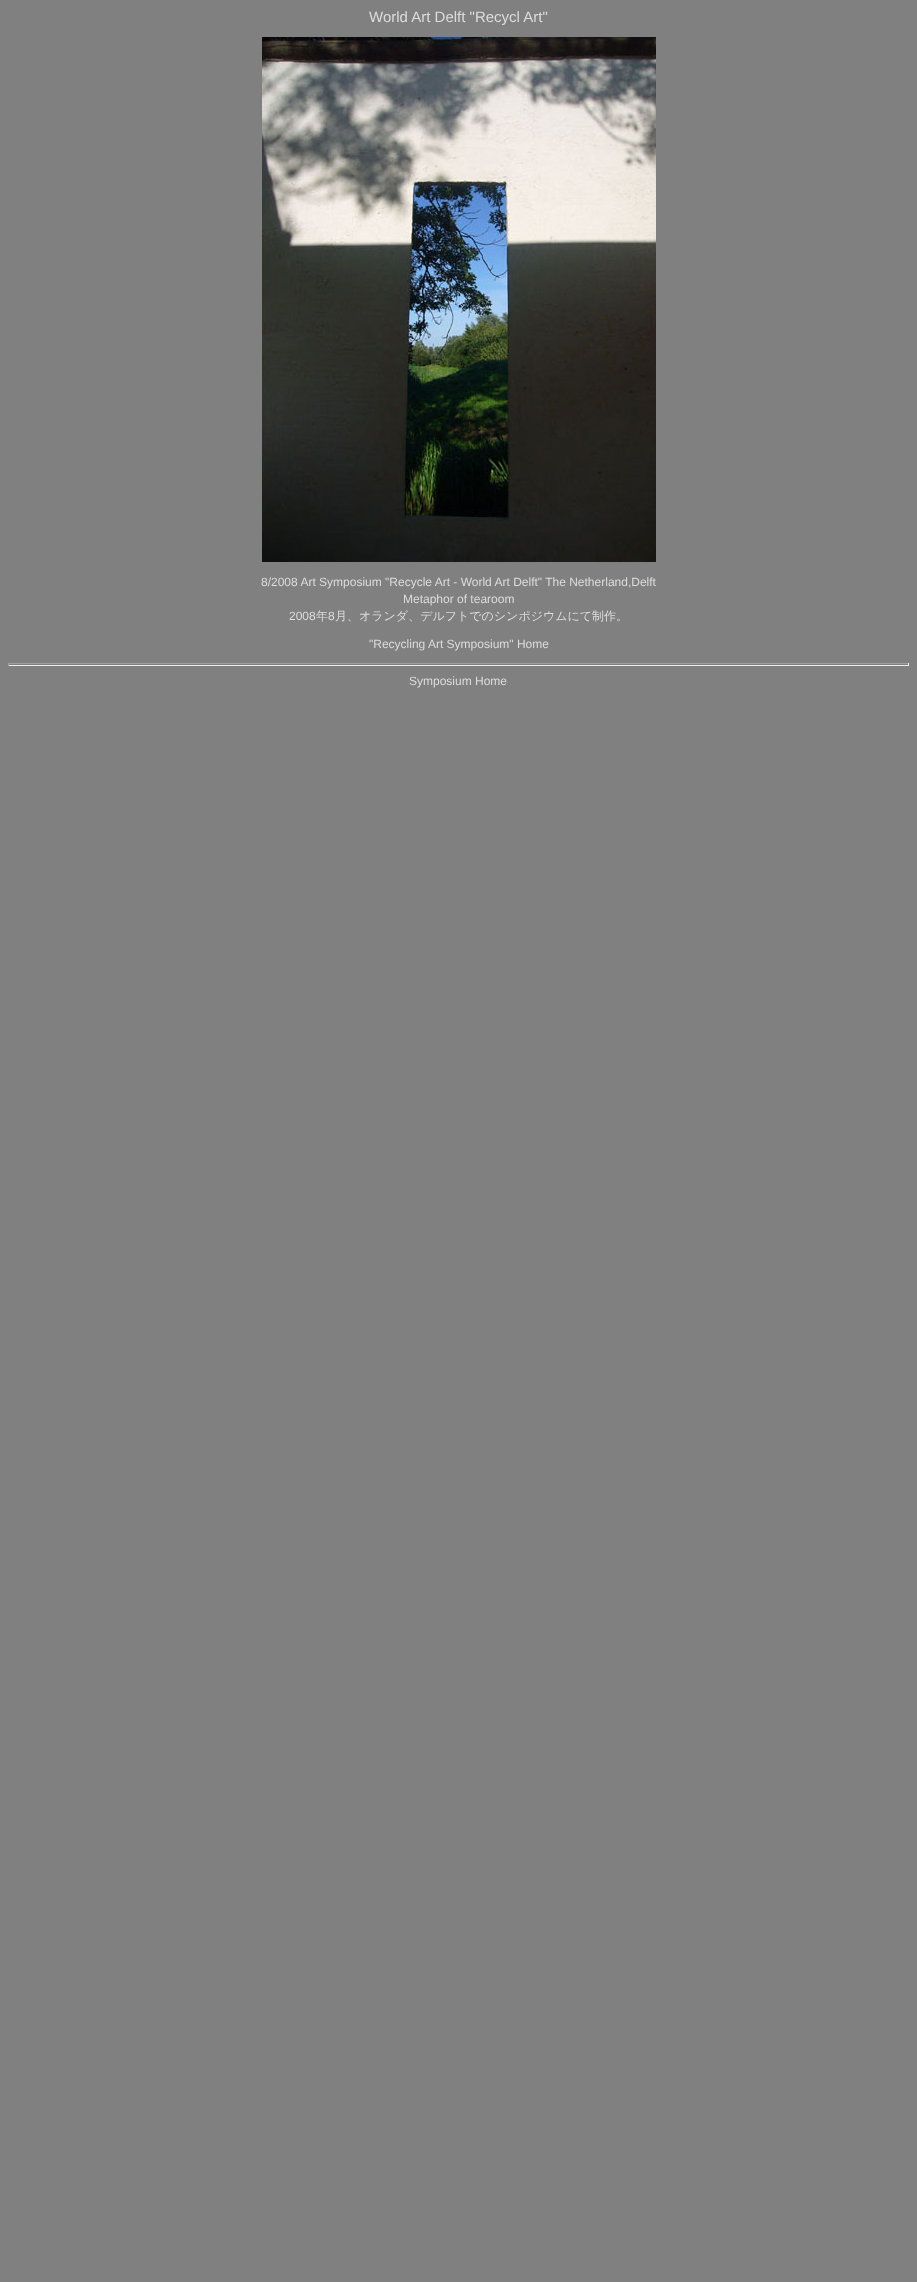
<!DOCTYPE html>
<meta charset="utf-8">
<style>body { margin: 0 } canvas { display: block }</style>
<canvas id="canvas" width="917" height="2282"></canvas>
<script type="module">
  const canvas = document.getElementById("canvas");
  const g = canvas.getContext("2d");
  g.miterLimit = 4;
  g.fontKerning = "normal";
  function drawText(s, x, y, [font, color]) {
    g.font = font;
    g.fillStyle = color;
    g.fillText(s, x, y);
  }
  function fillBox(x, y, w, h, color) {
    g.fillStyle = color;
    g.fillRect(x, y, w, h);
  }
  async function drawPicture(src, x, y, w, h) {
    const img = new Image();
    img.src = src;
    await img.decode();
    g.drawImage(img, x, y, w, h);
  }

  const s1 = ["15px Liberation Sans", "#DCDCDC"];
  const s2 = ["12px Liberation Sans", "#DCDCDC"];
  const s3 = ["500 12px WenQuanYi Zen Hei", "#DCDCDC"];

  fillBox(0, 0, 917, 2282, "#808080");
  drawText("World Art Delft \"Recycl Art\"", 369, 22, s1);
  await drawPicture("pic1.png", 262, 37, 394, 525);
  drawText("8/2008 Art Symposium \"Recycle Art - World Art Delft\" The Netherland,Delft", 261, 586, s2);
  drawText("Metaphor of tearoom", 403, 603, s2);
  drawText("2008", 289, 620, s2);
  drawText("年", 316, 620, s3);
  drawText("8", 328, 620, s2);
  drawText("月、オランダ、デルフトでのシンポジウムにて制作。", 335, 620, s3);
  drawText("\"Recycling Art Symposium\" Home", 369, 648, s2);
  fillBox(8, 663, 901, 1, "#9F9F9F");
  fillBox(908, 663, 1, 3, "#EEEEEE");
  fillBox(8, 665, 901, 1, "#EEEEEE");
  fillBox(8, 663, 1, 3, "#9F9F9F");
  drawText("Symposium Home", 409, 685, s2);
</script>
